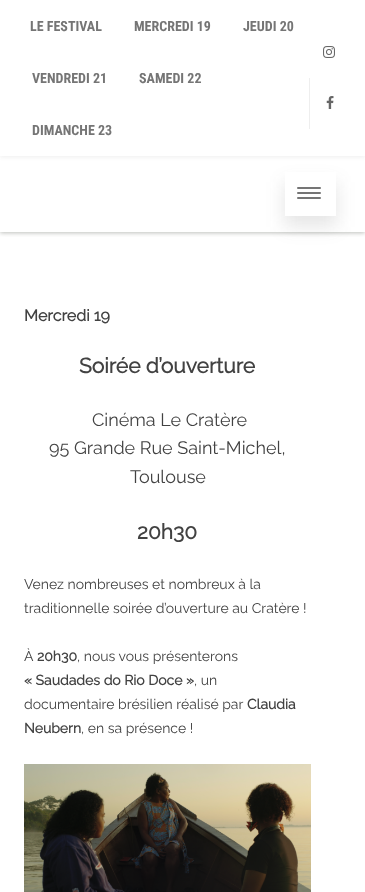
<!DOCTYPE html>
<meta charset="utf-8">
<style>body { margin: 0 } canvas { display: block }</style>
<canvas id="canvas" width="365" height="892"></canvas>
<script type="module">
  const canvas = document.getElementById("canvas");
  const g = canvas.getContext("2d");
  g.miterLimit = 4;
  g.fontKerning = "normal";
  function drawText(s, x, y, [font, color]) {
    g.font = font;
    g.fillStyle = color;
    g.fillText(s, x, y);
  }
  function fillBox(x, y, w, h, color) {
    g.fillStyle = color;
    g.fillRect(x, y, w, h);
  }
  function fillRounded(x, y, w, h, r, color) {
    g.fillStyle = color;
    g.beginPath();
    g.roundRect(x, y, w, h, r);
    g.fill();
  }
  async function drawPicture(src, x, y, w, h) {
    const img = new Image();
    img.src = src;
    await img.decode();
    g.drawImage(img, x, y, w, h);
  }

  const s1 = ["bold 14px Roboto Condensed", "#757575"];
  const s2 = ["bold 16px Raleway", "#424242"];
  const s3 = ["bold 21px Raleway", "#424242"];
  const s4 = ["18px Raleway", "#424242"];
  const s5 = ["14px Raleway", "#424242"];
  const s6 = ["bold 14px Raleway", "#424242"];

  fillBox(0, 0, 365, 892, "#FFFFFF");
  g.save();
  g.beginPath();
  g.rect(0, 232, 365, 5);
  g.clip();
  g.fillStyle = "rgba(167, 169, 164, 0.75)";
  g.filter = "blur(2px)";
  g.beginPath();
  g.rect(0, 1, 365, 232);
  g.fill();
  g.filter = "none";
  g.restore();
  g.save();
  g.beginPath();
  g.rect(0, 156, 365, 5);
  g.clip();
  g.fillStyle = "#EEEEEE";
  g.filter = "blur(2px)";
  g.beginPath();
  g.rect(0, 1, 365, 156);
  g.fill();
  g.filter = "none";
  g.restore();
  drawText("LE FESTIVAL", 30, 31, s1);
  drawText("MERCREDI 19", 134, 31, s1);
  drawText("JEUDI 20", 243, 31, s1);
  drawText("VENDREDI 21", 32, 83, s1);
  drawText("SAMEDI 22", 139, 83, s1);
  drawText("DIMANCHE 23", 32, 135, s1);
  await drawPicture("pic1.png", 323, 46, 12, 12);
  fillBox(309, 78, 1, 51, "#EEEEEE");
  await drawPicture("pic2.png", 326, 96, 8, 13);
  g.save();
  g.beginPath();
  g.moveTo(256, 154);
  g.lineTo(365, 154);
  g.lineTo(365, 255);
  g.lineTo(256, 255);
  g.closePath();
  g.moveTo(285, 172);
  g.lineTo(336, 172);
  g.lineTo(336, 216);
  g.lineTo(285, 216);
  g.closePath();
  g.clip("evenodd");
  g.fillStyle = "rgba(64, 64, 64, 0.13)";
  g.filter = "blur(9px)";
  g.beginPath();
  g.rect(284, 182, 53, 45);
  g.fill();
  g.filter = "none";
  g.restore();
  fillRounded(297, 187, 24, 2, 1, "#757575");
  fillRounded(297, 192, 24, 2, 1, "#757575");
  fillRounded(297, 197, 24, 2, 1, "#757575");
  drawText("Mercredi 19", 24, 321, s2);
  drawText("Soirée d’ouverture", 79, 373, s3);
  drawText("Cinéma Le Cratère", 92, 426, s4);
  drawText("95 Grande Rue Saint-Michel,", 49, 454, s4);
  drawText("Toulouse", 130, 483, s4);
  drawText("20h30", 137, 539, s3);
  drawText("Venez nombreuses et nombreux à la", 24, 589, s5);
  drawText("traditionnelle soirée d’ouverture au Cratère !", 24, 613, s5);
  drawText("À", 24, 661, s5);
  drawText("20h30", 37, 661, s6);
  drawText(", nous vous présenterons", 77, 661, s5);
  drawText("« Saudades do Rio Doce »", 24, 685, s6);
  drawText(", un", 194, 685, s5);
  drawText("documentaire brésilien réalisé par", 24, 709, s5);
  drawText("Claudia", 247, 709, s6);
  drawText("Neubern", 24, 733, s6);
  drawText(", en sa présence !", 81, 733, s5);
  await drawPicture("pic3.png", 24, 764, 287, 128);
</script>
